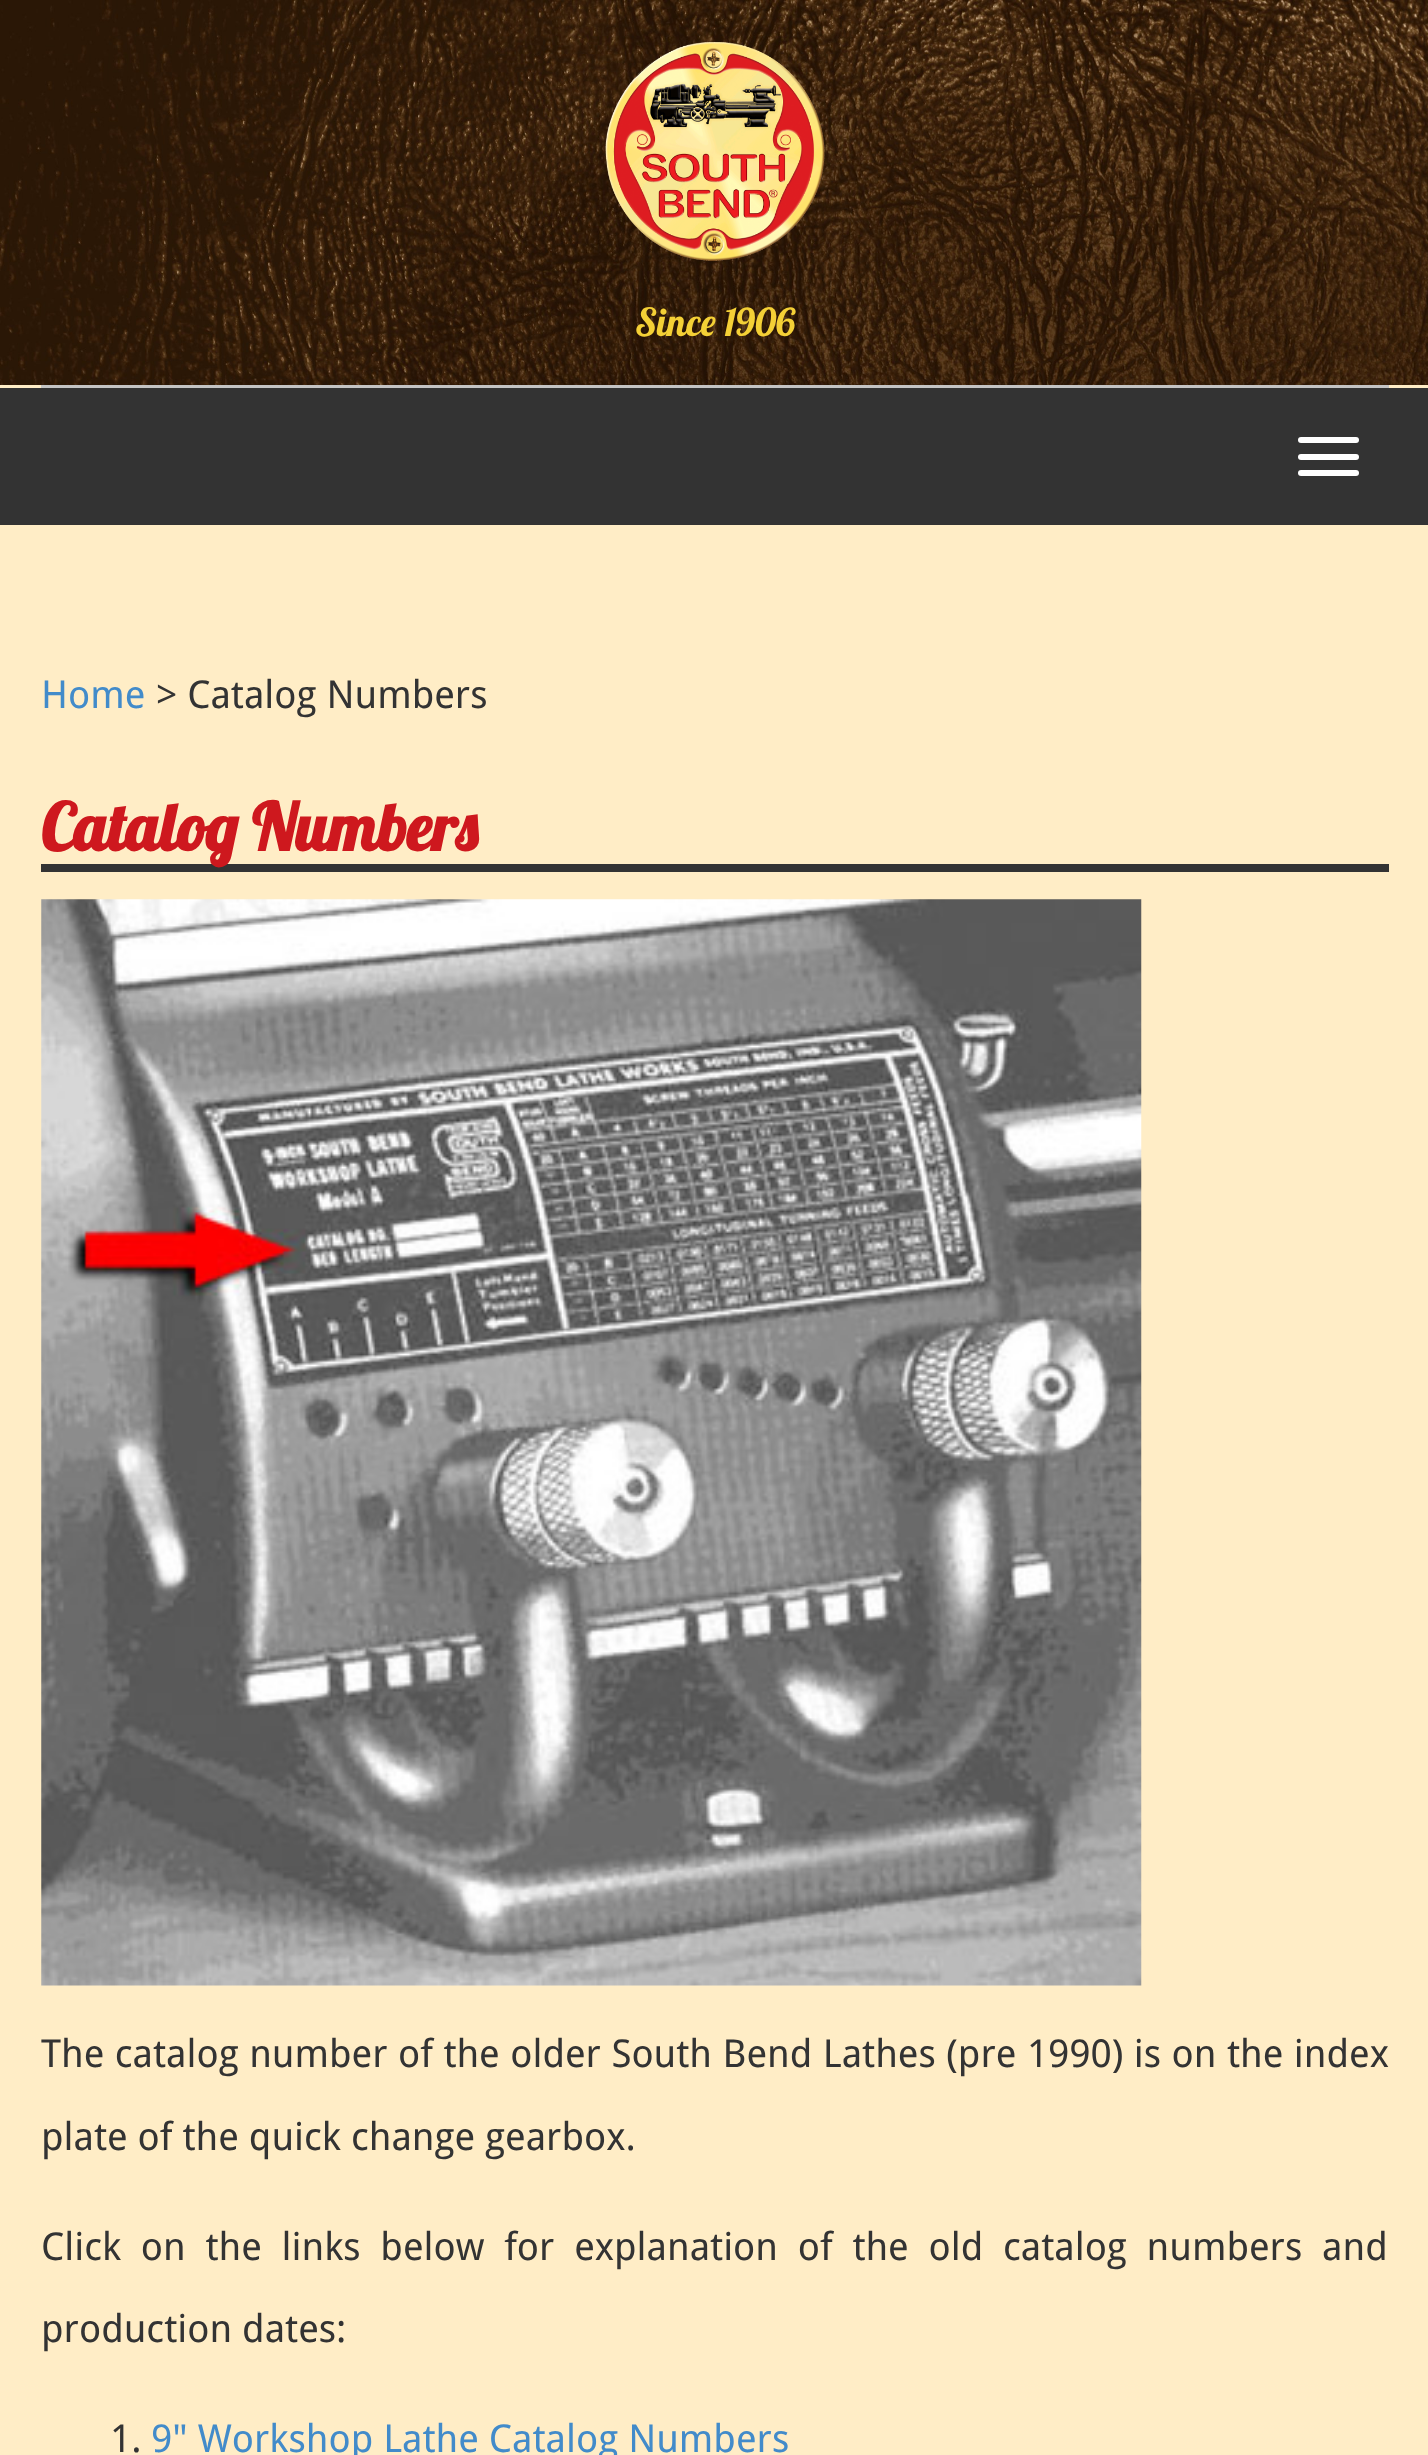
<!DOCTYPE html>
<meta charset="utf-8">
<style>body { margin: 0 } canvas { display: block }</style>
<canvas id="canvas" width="1428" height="2455"></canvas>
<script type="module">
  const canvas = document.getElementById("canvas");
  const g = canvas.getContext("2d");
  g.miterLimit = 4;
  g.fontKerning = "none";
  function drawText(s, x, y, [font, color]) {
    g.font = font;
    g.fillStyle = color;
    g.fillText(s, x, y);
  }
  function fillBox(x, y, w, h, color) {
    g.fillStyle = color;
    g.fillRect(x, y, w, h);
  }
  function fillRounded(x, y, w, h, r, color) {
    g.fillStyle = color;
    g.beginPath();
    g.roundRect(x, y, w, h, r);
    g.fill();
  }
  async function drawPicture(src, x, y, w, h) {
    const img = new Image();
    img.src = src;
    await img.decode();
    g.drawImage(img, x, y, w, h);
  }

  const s1 = ["38.5px Lobster", "#F4D036"];
  const s2 = ["38.5px Droid Sans", "#428BCA"];
  const s3 = ["38.5px Droid Sans", "#333333"];
  const s4 = ["bold 65.5px Lobster", "#CE181E"];

  fillBox(0, 0, 1428, 2455, "#FFEDC6");
  await drawPicture("pic1.png", 0, 0, 1428, 385);
  await drawPicture("pic2.png", 605, 42, 220, 219);
  drawText("Since 1906", 635, 336, s1);
  fillBox(41, 385, 1348, 3, "#C4C4C4");
  fillBox(0, 388, 1428, 137, "#333333");
  fillRounded(1298, 437, 61, 6, 3, "#FFFFFF");
  fillRounded(1298, 454, 61, 6, 3, "#FFFFFF");
  fillRounded(1298, 470, 61, 6, 3, "#FFFFFF");
  drawText("Home", 41, 708, s2);
  drawText("> Catalog Numbers", 156, 708, s3);
  fillBox(41, 864, 1348, 8, "#333333");
  drawText("Catalog Numbers", 41, 851, s4);
  await drawPicture("pic3.png", 41, 899, 1101, 1087);
  g.wordSpacing = "0.5px";
  drawText("The catalog number of the older South Bend Lathes (pre 1990) is on the index", 41, 2067, s3);
  g.wordSpacing = "0px";
  drawText("plate of the quick change gearbox.", 41, 2150, s3);
  g.wordSpacing = "9.75px";
  drawText("Click on the links below for explanation of the old catalog numbers and", 41, 2260, s3);
  g.wordSpacing = "0px";
  drawText("production dates:", 41, 2342, s3);
  drawText("1.", 110, 2452, s3);
  drawText("9\" Workshop Lathe Catalog Numbers", 151, 2452, s2);
</script>
